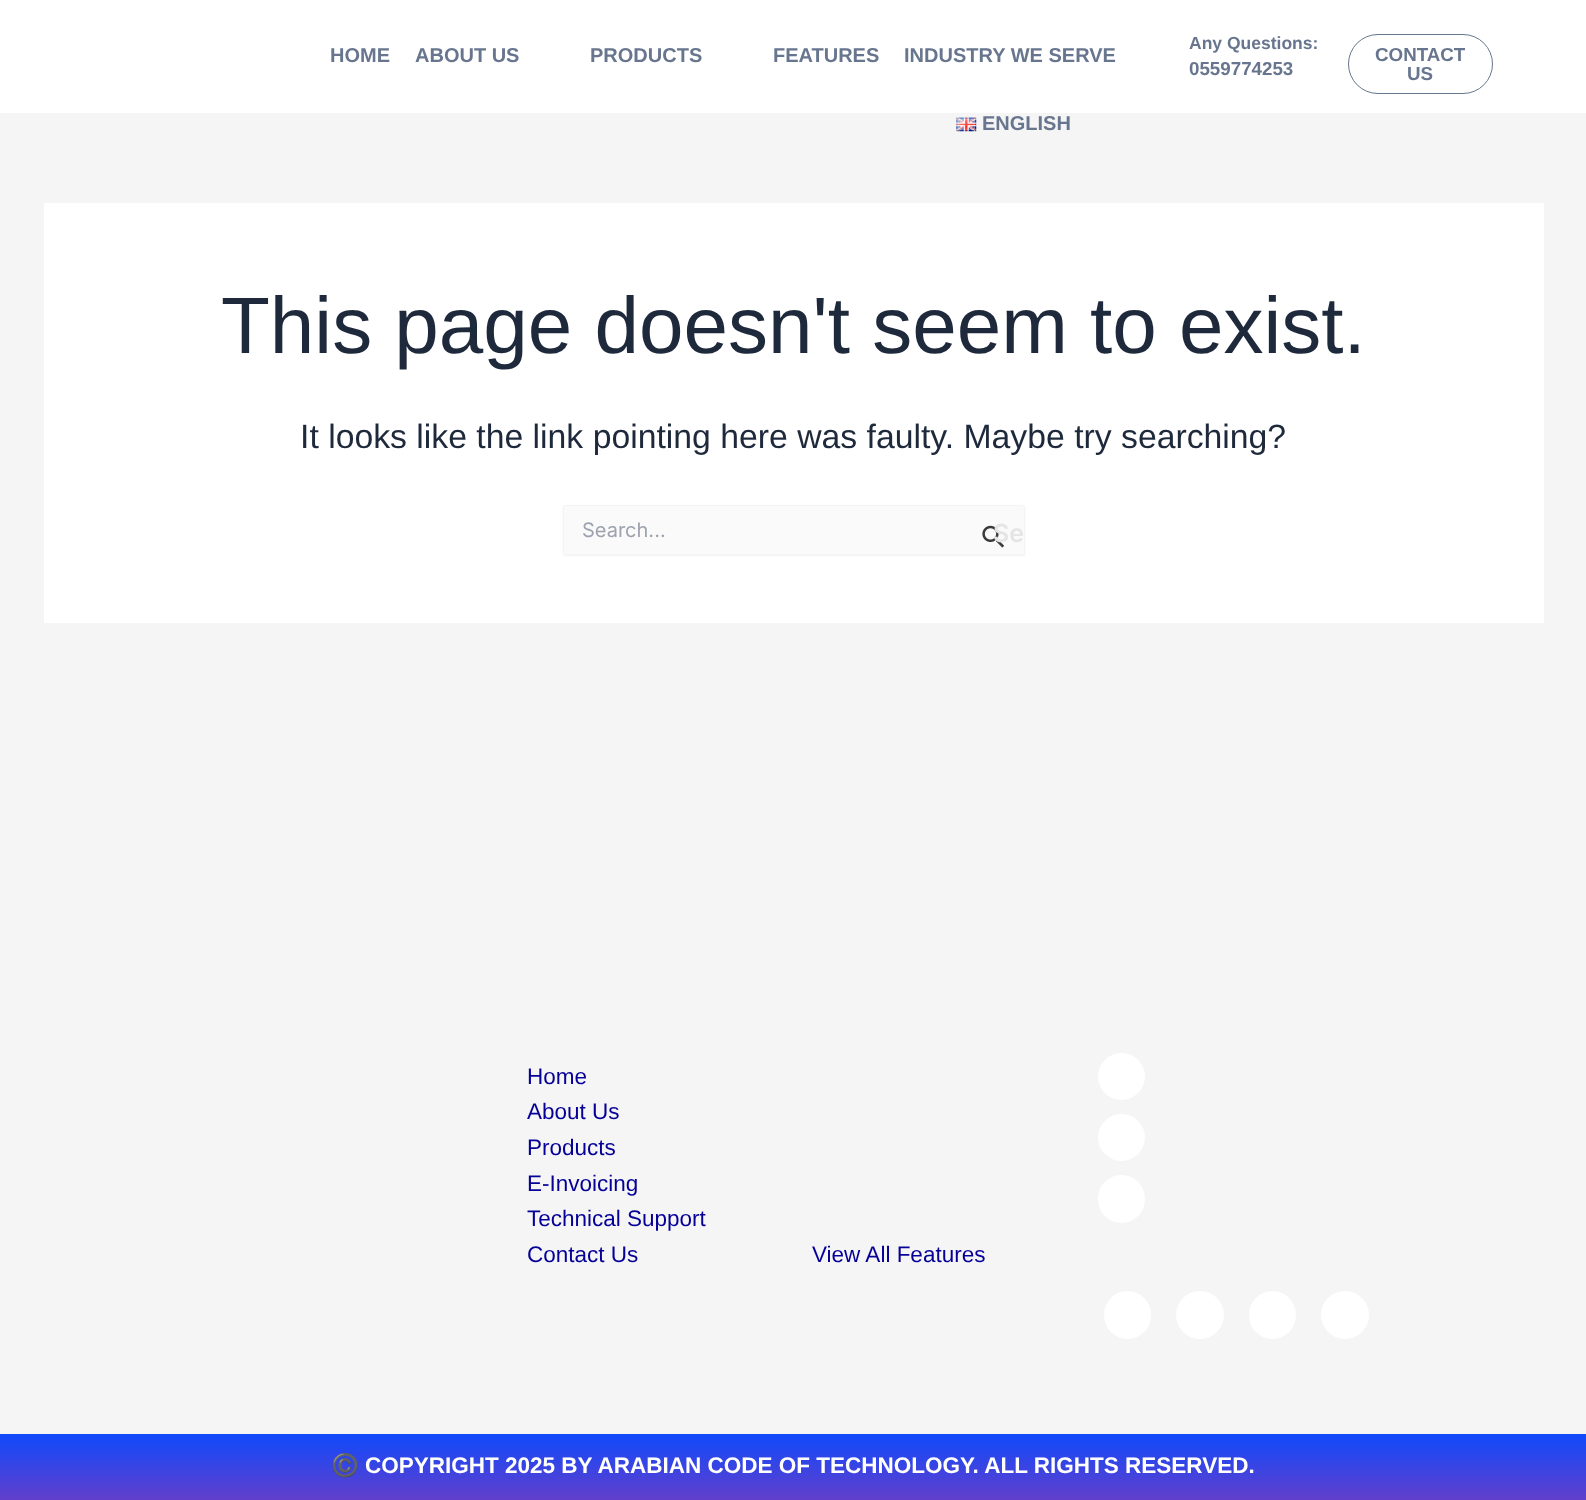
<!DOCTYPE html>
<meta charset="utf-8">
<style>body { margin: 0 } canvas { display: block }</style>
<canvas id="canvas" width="1586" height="1500"></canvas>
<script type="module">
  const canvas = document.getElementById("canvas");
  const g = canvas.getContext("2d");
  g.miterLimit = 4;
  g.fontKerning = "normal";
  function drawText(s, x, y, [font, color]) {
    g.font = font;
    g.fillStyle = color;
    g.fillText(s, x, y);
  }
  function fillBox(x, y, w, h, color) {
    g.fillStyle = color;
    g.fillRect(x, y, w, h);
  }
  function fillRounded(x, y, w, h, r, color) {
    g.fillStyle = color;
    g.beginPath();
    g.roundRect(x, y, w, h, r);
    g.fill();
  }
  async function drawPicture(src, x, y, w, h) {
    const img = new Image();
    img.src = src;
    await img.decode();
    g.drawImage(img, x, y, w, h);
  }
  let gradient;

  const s1 = ["bold 20px Liberation Sans", "#67768E"];
  const s2 = ["bold 17.5px Liberation Sans", "#67768E"];
  const s3 = ["bold 18.75px Liberation Sans", "#67768E"];
  const s4 = ["80px Liberation Sans", "#1E293B"];
  const s5 = ["33.75px Liberation Sans", "#1E293B"];
  const s6 = ["20px Inter", "#9CA3AF"];
  const s7 = ["600 25px Inter", "#E5E5E5"];
  const s8 = ["22.5px Liberation Sans", "#060097"];
  const s9 = ["bold 22.5px Noto Color Emoji", "#FFFFFF"];
  const s10 = ["bold 22.5px Liberation Sans", "#FFFFFF"];

  fillBox(0, 0, 1586, 1500, "#F5F5F5");
  fillBox(0, 0, 1586, 113, "#FFFFFF");
  drawText("HOME", 330, 62, s1);
  drawText("ABOUT US", 415, 62, s1);
  drawText("PRODUCTS", 590, 62, s1);
  drawText("FEATURES", 773, 62, s1);
  drawText("INDUSTRY WE SERVE", 904, 62, s1);
  await drawPicture("pic1.png", 956, 117, 21, 15);
  drawText("ENGLISH", 982, 130, s1);
  drawText("Any Questions:", 1189, 49, s2);
  drawText("0559774253", 1189, 75, s3);
  g.beginPath();
  g.roundRect(1348.5, 34.5, 144, 59, 29.5);
  g.strokeStyle = "#67768E";
  g.stroke();
  drawText("CONTACT", 1375, 61, s3);
  drawText("US", 1407, 80, s3);
  fillBox(44, 203, 1500, 420, "#FFFFFF");
  drawText("This page doesn't seem to exist.", 221, 353, s4);
  drawText("It looks like the link pointing here was faulty. Maybe try searching?", 300, 448, s5);
  g.fillStyle = "rgba(0, 0, 0, 0.05)";
  g.filter = "blur(1px)";
  g.beginPath();
  g.roundRect(563, 506, 462, 50, 2.5);
  g.fill();
  g.filter = "none";
  g.fillStyle = "#FAFAFA";
  g.beginPath();
  g.roundRect(563.5, 505.5, 461, 49, 2);
  g.fill();
  g.strokeStyle = "#F2F5F7";
  g.stroke();
  drawText("Search...", 582, 537, s6);
  await drawPicture("pic2.png", 982, 525, 22, 23);
  drawText("Se", 993, 542, s7);
  drawText("Home", 527, 1084, s8);
  drawText("About Us", 527, 1119, s8);
  drawText("Products", 527, 1155, s8);
  drawText("E-Invoicing", 527, 1191, s8);
  drawText("Technical Support", 527, 1226, s8);
  drawText("Contact Us", 527, 1262, s8);
  drawText("View All Features", 812, 1262, s8);
  g.fillStyle = "#FFFFFF";
  g.beginPath();
  g.arc(1121.5, 1076.5, 23.5, 0, Math.PI * 2);
  g.fill();
  g.beginPath();
  g.arc(1121.5, 1137.5, 23.5, 0, Math.PI * 2);
  g.fill();
  fillRounded(1098, 1175, 47, 48, 23.5, "#FFFFFF");
  fillRounded(1104, 1291, 47, 48, 23.5, "#FFFFFF");
  g.beginPath();
  g.arc(1200, 1315, 24, 0, Math.PI * 2);
  g.fill();
  fillRounded(1249, 1291, 47, 48, 23.5, "#FFFFFF");
  g.beginPath();
  g.arc(1345, 1315, 24, 0, Math.PI * 2);
  g.fill();
  gradient = g.createLinearGradient(793, 1434, 793, 1500);
  gradient.addColorStop(0, "#1049FB");
  gradient.addColorStop(1, "#613FCB");
  g.fillStyle = gradient;
  g.fillRect(0, 1434, 1586, 66);
  drawText("©️", 331, 1473, s9);
  drawText("COPYRIGHT 2025 BY ARABIAN CODE OF TECHNOLOGY. ALL RIGHTS RESERVED.", 365, 1473, s10);
</script>
